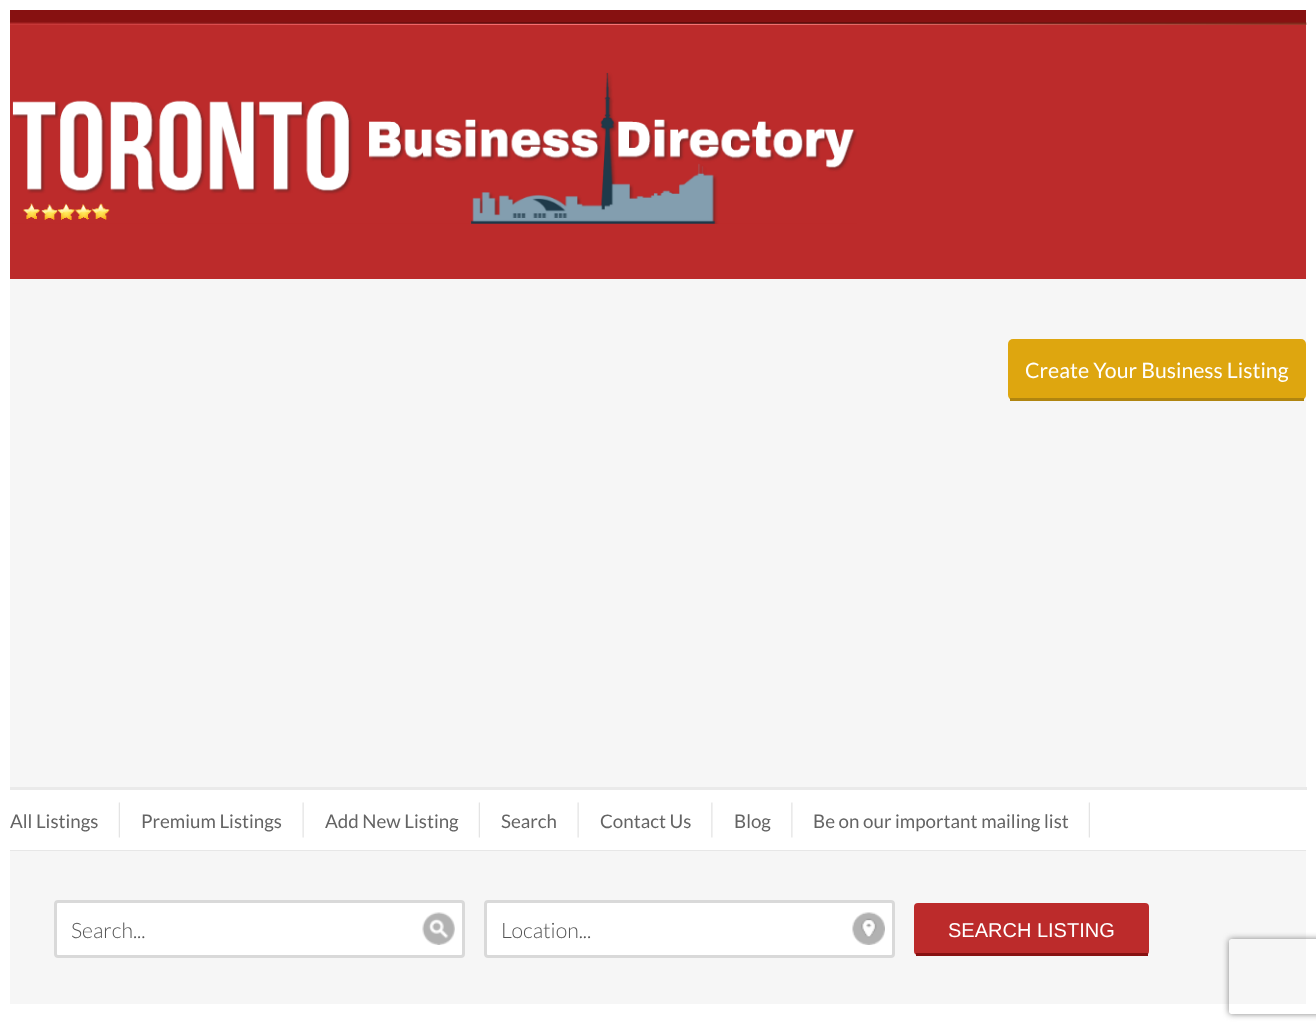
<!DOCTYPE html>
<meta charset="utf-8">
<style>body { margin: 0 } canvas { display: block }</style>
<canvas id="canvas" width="1316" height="1031"></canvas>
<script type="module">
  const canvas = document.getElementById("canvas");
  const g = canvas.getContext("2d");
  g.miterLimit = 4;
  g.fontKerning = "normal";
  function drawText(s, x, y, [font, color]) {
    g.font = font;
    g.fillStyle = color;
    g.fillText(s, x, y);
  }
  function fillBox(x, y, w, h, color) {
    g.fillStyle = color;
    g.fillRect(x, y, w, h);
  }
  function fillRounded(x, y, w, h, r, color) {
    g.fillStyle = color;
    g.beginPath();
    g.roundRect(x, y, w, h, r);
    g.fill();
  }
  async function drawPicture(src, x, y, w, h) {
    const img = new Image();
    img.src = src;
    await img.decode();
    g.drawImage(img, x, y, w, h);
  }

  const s1 = ["21.25px Lato", "#FFFFFF"];
  const s2 = ["18.75px Lato", "#646464"];
  const s3 = ["300 21.25px Lato", "#555555"];
  const s4 = ["20px Liberation Sans", "#FFFFFF"];

  fillBox(0, 0, 1316, 1031, "#FFFFFF");
  fillBox(10, 10, 1296, 13, "#871111");
  fillBox(10, 279, 1296, 725, "#F6F6F6");
  fillBox(10, 25, 1296, 254, "#BC2B2B");
  await drawPicture("pic1.png", 10, 22, 1297, 3);
  await drawPicture("pic2.png", 12, 72, 845, 152);
  fillRounded(1008, 339, 298, 61, 5, "#DEA60F");
  fillBox(1010, 398, 294, 3, "#B08510");
  drawText("Create Your Business Listing", 1025, 378, s1);
  fillBox(10, 787, 1297, 3, "#EAEAEA");
  fillBox(10, 790, 1296, 60, "#FFFFFF");
  fillBox(10, 850, 1296, 1, "#E7E7E7");
  await drawPicture("pic3.png", 118, 802, 2, 36);
  drawText("All Listings", 10, 828, s2);
  await drawPicture("pic4.png", 302, 802, 2, 36);
  drawText("Premium Listings", 141, 828, s2);
  await drawPicture("pic3.png", 478, 802, 2, 36);
  drawText("Add New Listing", 325, 828, s2);
  await drawPicture("pic4.png", 577, 802, 2, 36);
  drawText("Search", 501, 828, s2);
  await drawPicture("pic5.png", 711, 802, 2, 36);
  drawText("Contact Us", 600, 828, s2);
  await drawPicture("pic5.png", 791, 802, 2, 36);
  drawText("Blog", 734, 828, s2);
  await drawPicture("pic3.png", 1088, 802, 2, 36);
  drawText("Be on our important mailing list", 813, 828, s2);
  fillRounded(54, 900, 411, 58, 4, "#FFFFFF");
  await drawPicture("pic6.png", 422, 912, 33, 33);
  g.beginPath();
  g.roundRect(55.5, 901.5, 408, 55, 2.5);
  g.strokeStyle = "#D9D9D9";
  g.lineWidth = 3;
  g.stroke();
  drawText("Search...", 71, 938, s3);
  fillRounded(484, 900, 411, 58, 4, "#FFFFFF");
  await drawPicture("pic7.png", 852, 912, 33, 33);
  g.beginPath();
  g.roundRect(485.5, 901.5, 408, 55, 2.5);
  g.stroke();
  drawText("Location...", 501, 938, s3);
  fillRounded(914, 903, 235, 52, 4, "#BC2B2B");
  fillBox(916, 953, 232, 3, "#871111");
  drawText("SEARCH LISTING", 948, 937, s4);
  g.save();
  g.beginPath();
  g.moveTo(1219, 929);
  g.lineTo(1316, 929);
  g.lineTo(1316, 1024);
  g.lineTo(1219, 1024);
  g.closePath();
  g.moveTo(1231.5, 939);
  g.lineTo(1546.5, 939);
  g.bezierCurveTo(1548, 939, 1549, 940, 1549, 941.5);
  g.lineTo(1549, 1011.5);
  g.bezierCurveTo(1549, 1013, 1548, 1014, 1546.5, 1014);
  g.lineTo(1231.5, 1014);
  g.bezierCurveTo(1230, 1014, 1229, 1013, 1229, 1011.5);
  g.lineTo(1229, 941.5);
  g.bezierCurveTo(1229, 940, 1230, 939, 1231.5, 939);
  g.closePath();
  g.clip("evenodd");
  g.fillStyle = "#808080";
  g.filter = "blur(3px)";
  g.beginPath();
  g.roundRect(1229, 939, 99, 75, 2.5);
  g.fill();
  g.filter = "none";
  g.restore();
</script>
